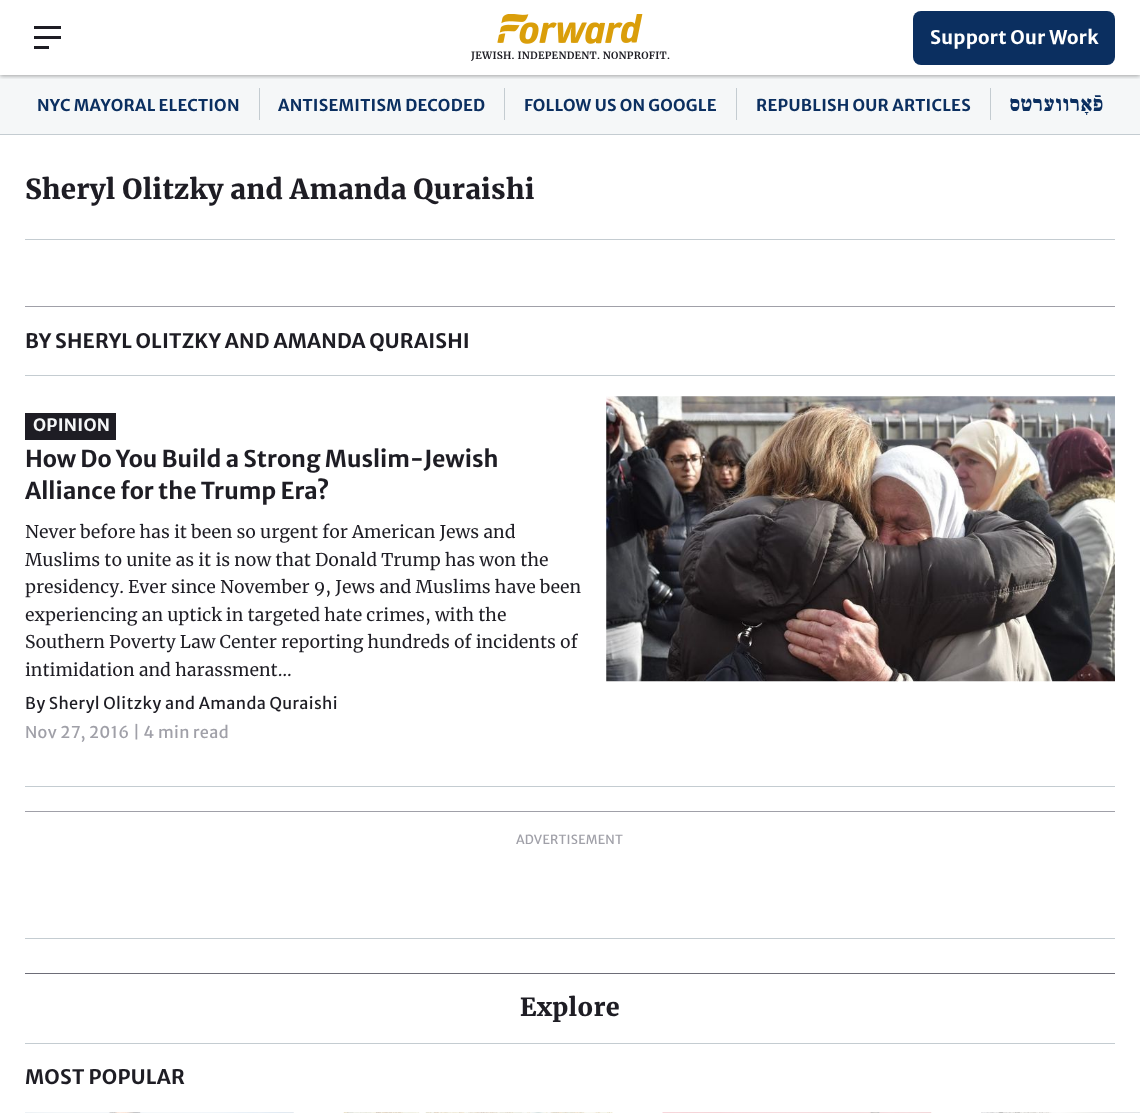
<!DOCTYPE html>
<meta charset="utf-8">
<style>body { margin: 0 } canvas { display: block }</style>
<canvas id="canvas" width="1140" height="1113"></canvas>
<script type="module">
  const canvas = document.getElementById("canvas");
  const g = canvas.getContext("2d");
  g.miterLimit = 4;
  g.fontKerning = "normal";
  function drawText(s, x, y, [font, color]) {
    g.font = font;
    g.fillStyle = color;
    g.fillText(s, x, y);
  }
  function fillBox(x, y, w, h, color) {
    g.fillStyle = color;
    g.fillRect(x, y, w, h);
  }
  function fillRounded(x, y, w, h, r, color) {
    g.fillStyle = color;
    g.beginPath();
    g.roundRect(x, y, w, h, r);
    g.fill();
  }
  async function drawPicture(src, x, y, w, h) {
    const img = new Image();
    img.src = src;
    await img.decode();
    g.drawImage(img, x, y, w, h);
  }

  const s1 = ["bold 18.75px Merriweather Sans", "#FFFFFF"];
  const s2 = ["bold 10px Merriweather", "#1E1D24"];
  const s3 = ["bold 16.25px Merriweather Sans", "#0B2F60"];
  const s4 = ["bold 25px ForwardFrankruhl", "#0B2F60"];
  const s5 = ["900 27.5px Merriweather", "#1E1D24"];
  const s6 = ["bold 20px Merriweather Sans", "#1E1D24"];
  const s7 = ["bold 17px Merriweather Sans", "#F5F7F8"];
  const s8 = ["bold 23.1px Merriweather Sans", "#1E1D24"];
  const s9 = ["17.5px Merriweather", "#1E1D24"];
  const s10 = ["16.25px Merriweather Sans", "#1E1D24"];
  const s11 = ["16.25px Merriweather Sans", "#A0A0A8"];
  const s12 = ["12.5px Merriweather Sans", "#A0A0A8"];
  const s13 = ["900 25px Merriweather", "#1E1D24"];

  fillBox(0, 0, 1140, 1113, "#FFFFFF");
  fillBox(0, 75, 1140, 59, "#F5F7F8");
  g.save();
  g.beginPath();
  g.rect(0, 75, 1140, 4);
  g.clip();
  g.fillStyle = "rgba(0, 0, 0, 0.35)";
  g.filter = "blur(2px)";
  g.beginPath();
  g.rect(0, 1, 1140, 75);
  g.fill();
  g.filter = "none";
  g.restore();
  fillBox(34, 26, 27, 3, "#1E1D24");
  fillBox(34, 36, 27, 3, "#1E1D24");
  fillBox(34, 46, 15, 3, "#1E1D24");
  fillRounded(913, 11, 202, 54, 8, "#0B2F60");
  g.letterSpacing = "0.25px";
  drawText("Support Our Work", 930, 44, s1);
  await drawPicture("pic1.png", 497, 14, 146, 30);
  drawText("JEWISH. INDEPENDENT. NONPROFIT.", 471, 59, s2);
  fillBox(0, 134, 1140, 1, "#C4CCD1");
  drawText("NYC MAYORAL ELECTION", 37, 111, s3);
  fillBox(259, 88, 1, 32, "#C4CCD1");
  drawText("ANTISEMITISM DECODED", 278, 111, s3);
  fillBox(504, 88, 1, 32, "#C4CCD1");
  drawText("FOLLOW US ON GOOGLE", 524, 111, s3);
  fillBox(736, 88, 1, 32, "#C4CCD1");
  drawText("REPUBLISH OUR ARTICLES", 756, 111, s3);
  fillBox(990, 88, 1, 32, "#C4CCD1");
  g.direction = "rtl";
  drawText("פֿאָרווערטס", 1104, 111, s4);
  fillBox(25, 239, 1090, 1, "#C4CCD1");
  g.direction = "ltr";
  drawText("Sheryl Olitzky and Amanda Quraishi", 25, 199, s5);
  fillBox(25, 306, 1090, 1, "#A0A0A8");
  fillBox(25, 375, 1090, 1, "#C4CCD1");
  g.letterSpacing = "0.2px";
  drawText("BY SHERYL OLITZKY AND AMANDA QURAISHI", 25, 348, s6);
  fillBox(25, 786, 1090, 1, "#C4CCD1");
  fillBox(25, 413, 91, 27, "#1E1D24");
  g.letterSpacing = "0.25px";
  drawText("OPINION", 33, 431, s7);
  g.letterSpacing = "0px";
  drawText("How Do You Build a Strong Muslim-Jewish", 25, 467, s8);
  drawText("Alliance for the Trump Era?", 25, 499, s8);
  drawText("Never before has it been so urgent for American Jews and", 25, 538, s9);
  drawText("Muslims to unite as it is now that Donald Trump has won the", 25, 566, s9);
  drawText("presidency. Ever since November 9, Jews and Muslims have been", 25, 593, s9);
  drawText("experiencing an uptick in targeted hate crimes, with the", 25, 621, s9);
  drawText("Southern Poverty Law Center reporting hundreds of incidents of", 25, 648, s9);
  drawText("intimidation and harassment…", 25, 676, s9);
  g.letterSpacing = "0.4px";
  drawText("By Sheryl Olitzky and Amanda Quraishi", 25, 709, s10);
  g.letterSpacing = "0.35px";
  drawText("Nov 27, 2016 | 4 min read", 25, 738, s11);
  await drawPicture("pic2.png", 606, 396, 509, 286);
  fillBox(25, 811, 1090, 1, "#A0A0A8");
  fillBox(25, 938, 1090, 1, "#C4CCD1");
  g.letterSpacing = "0.25px";
  drawText("ADVERTISEMENT", 516, 844, s12);
  fillBox(25, 973, 1090, 1, "#6D6D77");
  drawText("Explore", 520, 1016, s13);
  fillBox(25, 1043, 1090, 1, "#C4CCD1");
  drawText("MOST POPULAR", 25, 1084, s6);
  await drawPicture("pic3.png", 25, 1112, 269, 1);
  await drawPicture("pic4.png", 343, 1112, 270, 1);
  await drawPicture("pic5.png", 662, 1112, 270, 1);
  await drawPicture("pic6.png", 981, 1112, 159, 1);
</script>
